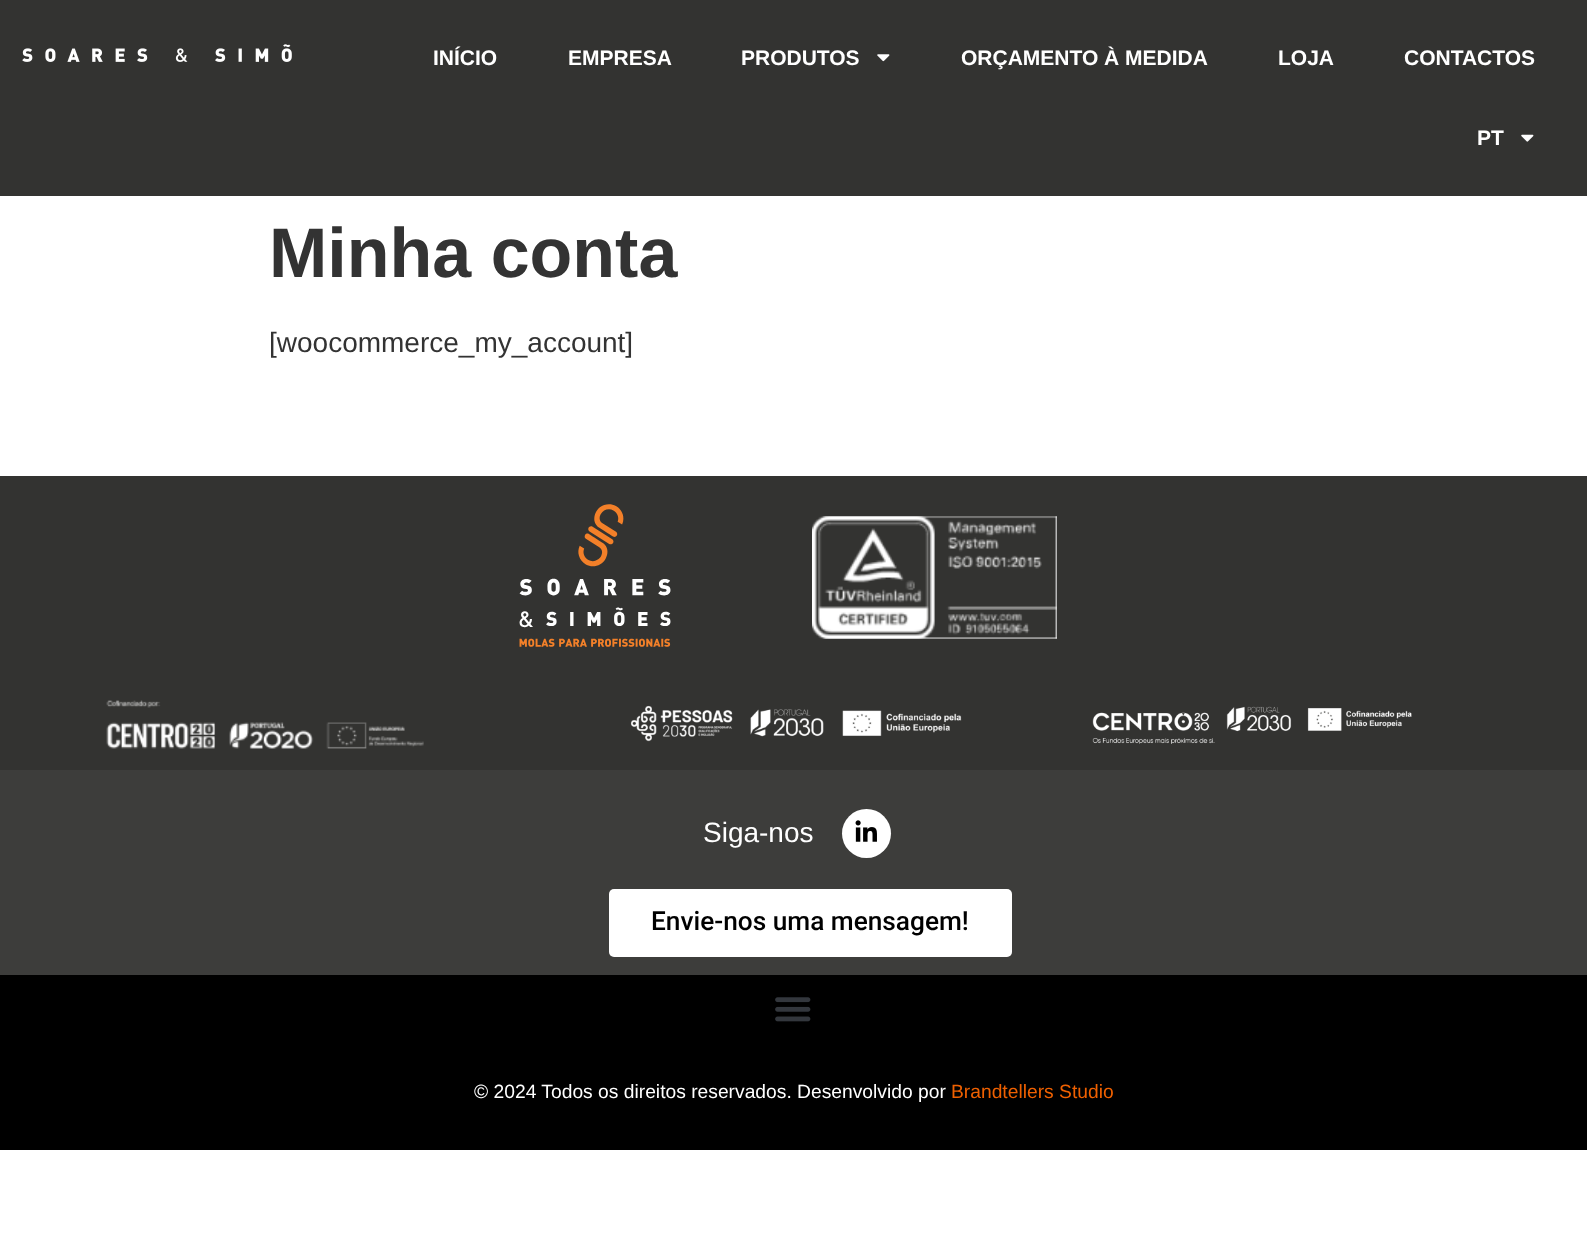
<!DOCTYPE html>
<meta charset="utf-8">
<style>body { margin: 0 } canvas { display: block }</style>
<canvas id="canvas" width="1587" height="1250"></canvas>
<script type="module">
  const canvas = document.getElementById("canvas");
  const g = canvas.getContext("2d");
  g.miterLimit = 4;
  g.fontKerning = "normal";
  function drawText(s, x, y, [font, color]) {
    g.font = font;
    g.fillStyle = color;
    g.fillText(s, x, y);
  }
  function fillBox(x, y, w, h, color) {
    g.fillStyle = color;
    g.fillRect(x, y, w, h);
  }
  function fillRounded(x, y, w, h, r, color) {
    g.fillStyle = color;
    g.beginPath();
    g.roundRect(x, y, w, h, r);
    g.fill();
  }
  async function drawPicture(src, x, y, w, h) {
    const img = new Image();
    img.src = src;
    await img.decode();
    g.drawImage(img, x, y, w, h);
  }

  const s1 = ["bold 21px Liberation Sans", "#FFFFFF"];
  const s2 = ["bold 70px Liberation Sans", "#333333"];
  const s3 = ["28px Liberation Sans", "#333333"];
  const s4 = ["28px Liberation Sans", "#FFFFFF"];
  const s5 = ["500 26.25px Roboto", "#000000"];
  const s6 = ["19.25px Liberation Sans", "#FFFFFF"];
  const s7 = ["19.25px Liberation Sans", "#EF6000"];

  fillBox(0, 0, 1587, 1250, "#FFFFFF");
  fillBox(0, 0, 1587, 196, "#333331");
  await drawPicture("pic1.png", 22, 44, 270, 18);
  drawText("INÍCIO", 433, 65, s1);
  drawText("EMPRESA", 568, 65, s1);
  drawText("PRODUTOS", 741, 65, s1);
  await drawPicture("pic2.png", 877, 54, 13, 8);
  drawText("ORÇAMENTO À MEDIDA", 961, 65, s1);
  drawText("LOJA", 1278, 65, s1);
  drawText("CONTACTOS", 1404, 65, s1);
  drawText("PT", 1477, 145, s1);
  await drawPicture("pic3.png", 1521, 134, 13, 8);
  drawText("Minha conta", 269, 277, s2);
  drawText("[woocommerce_my_account]", 269, 352, s3);
  fillBox(0, 476, 1587, 294, "#333331");
  await drawPicture("pic4.png", 519, 504, 152, 143);
  await drawPicture("pic5.png", 812, 516, 245, 123);
  await drawPicture("pic6.png", 106, 700, 318, 49);
  await drawPicture("pic7.png", 630, 705, 332, 37);
  await drawPicture("pic8.png", 1092, 706, 320, 38);
  fillBox(0, 770, 1587, 205, "#3D3D3B");
  drawText("Siga-nos", 703, 842, s4);
  g.beginPath();
  g.arc(866.5, 833.5, 24.5, 0, Math.PI * 2);
  g.fill();
  await drawPicture("pic9.png", 855, 820, 22, 22);
  fillRounded(609, 889, 403, 68, 5, "#FFFFFF");
  drawText("Envie-nos uma mensagem!", 651, 930, s5);
  fillBox(0, 975, 1587, 175, "#000000");
  await drawPicture("pic10.png", 775, 997, 36, 25);
  drawText("© 2024 Todos os direitos reservados. Desenvolvido por", 474, 1098, s6);
  drawText("Brandtellers Studio", 951, 1098, s7);
</script>
